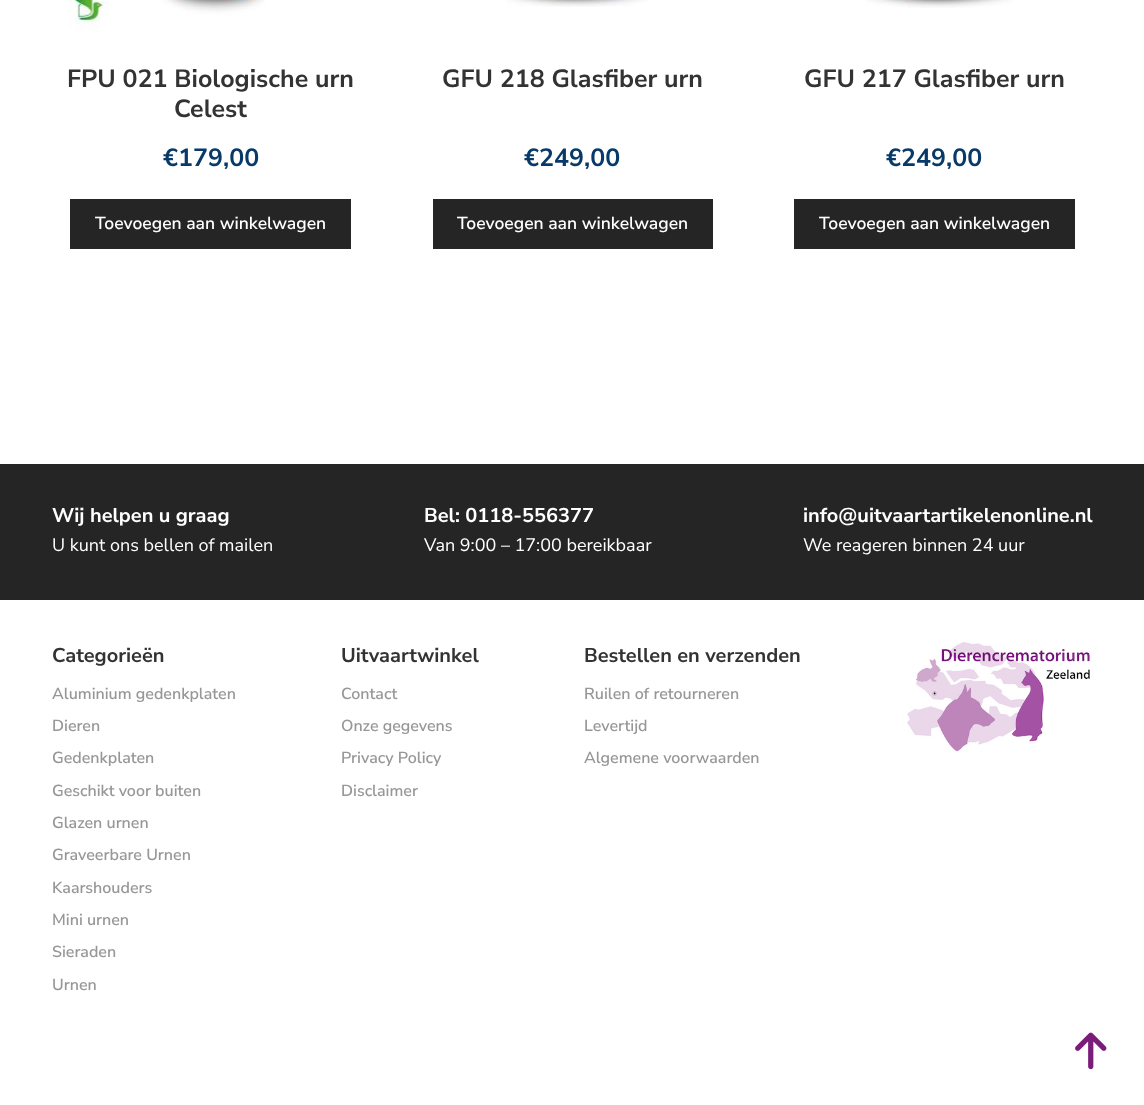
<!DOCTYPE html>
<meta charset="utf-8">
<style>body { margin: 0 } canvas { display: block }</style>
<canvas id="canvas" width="1144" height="1105"></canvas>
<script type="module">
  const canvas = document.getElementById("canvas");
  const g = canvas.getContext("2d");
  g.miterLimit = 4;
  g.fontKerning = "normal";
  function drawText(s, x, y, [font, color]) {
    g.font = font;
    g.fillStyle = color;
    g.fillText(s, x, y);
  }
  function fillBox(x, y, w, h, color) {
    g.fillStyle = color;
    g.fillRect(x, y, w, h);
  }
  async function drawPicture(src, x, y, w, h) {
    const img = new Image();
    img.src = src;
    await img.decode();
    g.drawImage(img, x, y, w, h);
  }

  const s1 = ["bold 25px Nunito Sans", "#333333"];
  const s2 = ["bold 25px Nunito Sans", "#083A69"];
  const s3 = ["600 17.5px Nunito Sans", "#FFFFFF"];
  const s4 = ["bold 20px Nunito Sans", "#FFFFFF"];
  const s5 = ["18px Nunito Sans", "#FFFFFF"];
  const s6 = ["bold 20px Nunito Sans", "#333333"];
  const s7 = ["600 16px Nunito Sans", "#979797"];

  fillBox(0, 0, 1144, 1105, "#FFFFFF");
  await drawPicture("pic1.png", 68, 0, 197, 32);
  drawText("FPU 021 Biologische urn", 67, 87, s1);
  drawText("Celest", 174, 117, s1);
  drawText("€179,00", 163, 166, s2);
  fillBox(70, 199, 281, 50, "#262526");
  drawText("Toevoegen aan winkelwagen", 95, 229, s3);
  await drawPicture("pic2.png", 506, 0, 142, 7);
  drawText("GFU 218 Glasfiber urn", 442, 87, s1);
  drawText("€249,00", 524, 166, s2);
  fillBox(433, 199, 280, 50, "#262526");
  drawText("Toevoegen aan winkelwagen", 457, 229, s3);
  await drawPicture("pic3.png", 866, 0, 147, 8);
  drawText("GFU 217 Glasfiber urn", 804, 87, s1);
  drawText("€249,00", 886, 166, s2);
  fillBox(794, 199, 281, 50, "#262526");
  drawText("Toevoegen aan winkelwagen", 819, 229, s3);
  fillBox(0, 464, 1144, 136, "#262526");
  drawText("Wij helpen u graag", 52, 522, s4);
  drawText("U kunt ons bellen of mailen", 52, 551, s5);
  drawText("Bel: 0118-556377", 424, 522, s4);
  drawText("Van 9:00 – 17:00 bereikbaar", 424, 551, s5);
  drawText("info@uitvaartartikelenonline.nl", 803, 522, s4);
  drawText("We reageren binnen 24 uur", 803, 551, s5);
  drawText("Categorieën", 52, 662, s6);
  drawText("Aluminium gedenkplaten", 52, 699, s7);
  drawText("Dieren", 52, 731, s7);
  drawText("Gedenkplaten", 52, 763, s7);
  drawText("Geschikt voor buiten", 52, 796, s7);
  drawText("Glazen urnen", 52, 828, s7);
  drawText("Graveerbare Urnen", 52, 860, s7);
  drawText("Kaarshouders", 52, 893, s7);
  drawText("Mini urnen", 52, 925, s7);
  drawText("Sieraden", 52, 957, s7);
  drawText("Urnen", 52, 990, s7);
  drawText("Uitvaartwinkel", 341, 662, s6);
  drawText("Contact", 341, 699, s7);
  drawText("Onze gegevens", 341, 731, s7);
  drawText("Privacy Policy", 341, 763, s7);
  drawText("Disclaimer", 341, 796, s7);
  drawText("Bestellen en verzenden", 584, 662, s6);
  drawText("Ruilen of retourneren", 584, 699, s7);
  drawText("Levertijd", 584, 731, s7);
  drawText("Algemene voorwaarden", 584, 763, s7);
  await drawPicture("pic4.png", 907, 642, 183, 110);
  await drawPicture("pic5.png", 1075, 1032, 32, 38);
</script>
